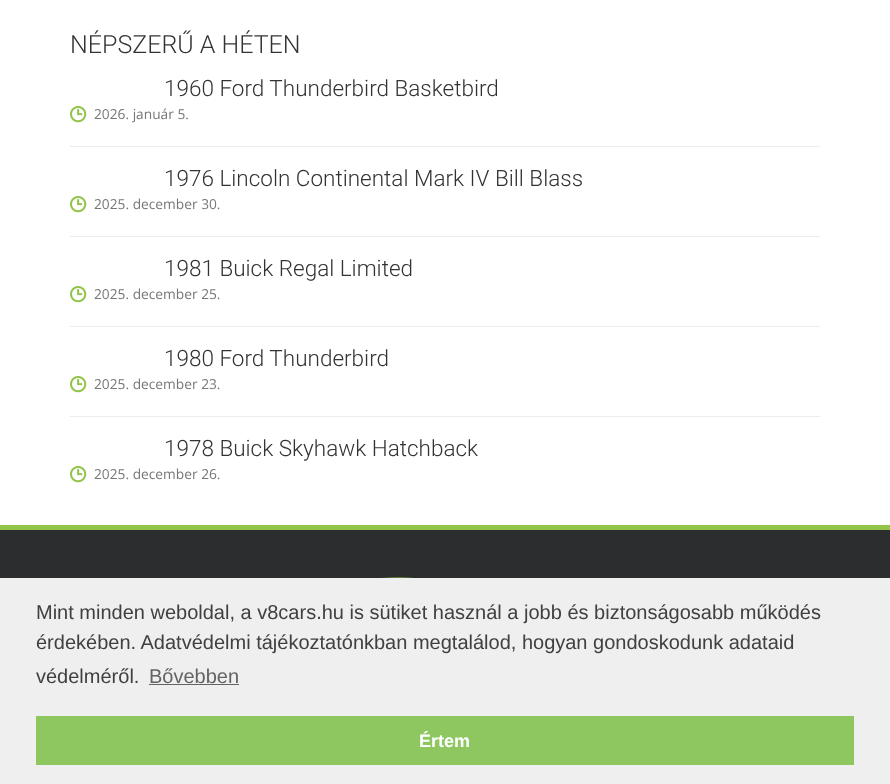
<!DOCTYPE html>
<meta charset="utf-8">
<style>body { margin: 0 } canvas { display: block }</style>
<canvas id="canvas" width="890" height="784"></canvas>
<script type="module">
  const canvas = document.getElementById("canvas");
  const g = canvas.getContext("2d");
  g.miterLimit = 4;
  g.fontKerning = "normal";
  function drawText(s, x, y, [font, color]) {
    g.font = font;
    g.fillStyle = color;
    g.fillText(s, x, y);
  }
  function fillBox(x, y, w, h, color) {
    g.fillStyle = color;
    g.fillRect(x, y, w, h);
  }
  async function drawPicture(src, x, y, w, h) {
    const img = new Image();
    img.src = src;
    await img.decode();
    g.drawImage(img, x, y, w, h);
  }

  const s1 = ["300 25px Roboto", "#333333"];
  const s2 = ["300 22.5px Roboto", "#333333"];
  const s3 = ["13.75px Open Sans", "#777777"];
  const s4 = ["20px Liberation Sans", "#404040"];
  const s5 = ["20px Liberation Sans", "#636363"];
  const s6 = ["bold 18px Liberation Sans", "#FFFFFF"];

  fillBox(0, 0, 890, 784, "#FFFFFF");
  drawText("NÉPSZERŰ A HÉTEN", 70, 53, s1);
  fillBox(70, 146, 750, 1, "#ECECEC");
  drawText("1960 Ford Thunderbird Basketbird", 164, 96, s2);
  await drawPicture("pic1.png", 70, 106, 17, 17);
  drawText("2026. január 5.", 94, 119, s3);
  fillBox(70, 236, 750, 1, "#ECECEC");
  drawText("1976 Lincoln Continental Mark IV Bill Blass", 164, 186, s2);
  await drawPicture("pic1.png", 70, 196, 17, 17);
  drawText("2025. december 30.", 94, 209, s3);
  fillBox(70, 326, 750, 1, "#ECECEC");
  drawText("1981 Buick Regal Limited", 164, 276, s2);
  await drawPicture("pic1.png", 70, 286, 17, 17);
  drawText("2025. december 25.", 94, 299, s3);
  fillBox(70, 416, 750, 1, "#ECECEC");
  drawText("1980 Ford Thunderbird", 164, 366, s2);
  await drawPicture("pic1.png", 70, 376, 17, 17);
  drawText("2025. december 23.", 94, 389, s3);
  drawText("1978 Buick Skyhawk Hatchback", 164, 456, s2);
  await drawPicture("pic1.png", 70, 466, 17, 17);
  drawText("2025. december 26.", 94, 479, s3);
  fillBox(0, 530, 890, 48, "#2C2D2E");
  fillBox(0, 525, 890, 5, "#91C448");
  await drawPicture("pic2.png", 381, 577, 33, 1);
  fillBox(0, 578, 890, 206, "#EFEFEF");
  drawText("Mint minden weboldal, a v8cars.hu is sütiket használ a jobb és biztonságosabb működés", 36, 619, s4);
  drawText("érdekében. Adatvédelmi tájékoztatónkban megtalálod, hogyan gondoskodunk adataid", 36, 649, s4);
  drawText("védelméről.", 36, 683, s4);
  drawText("Bővebben", 149, 683, s5);
  fillBox(149, 684, 90, 1, "#636363");
  fillBox(36, 716, 818, 49, "#8EC760");
  drawText("Értem", 419, 747, s6);
</script>
